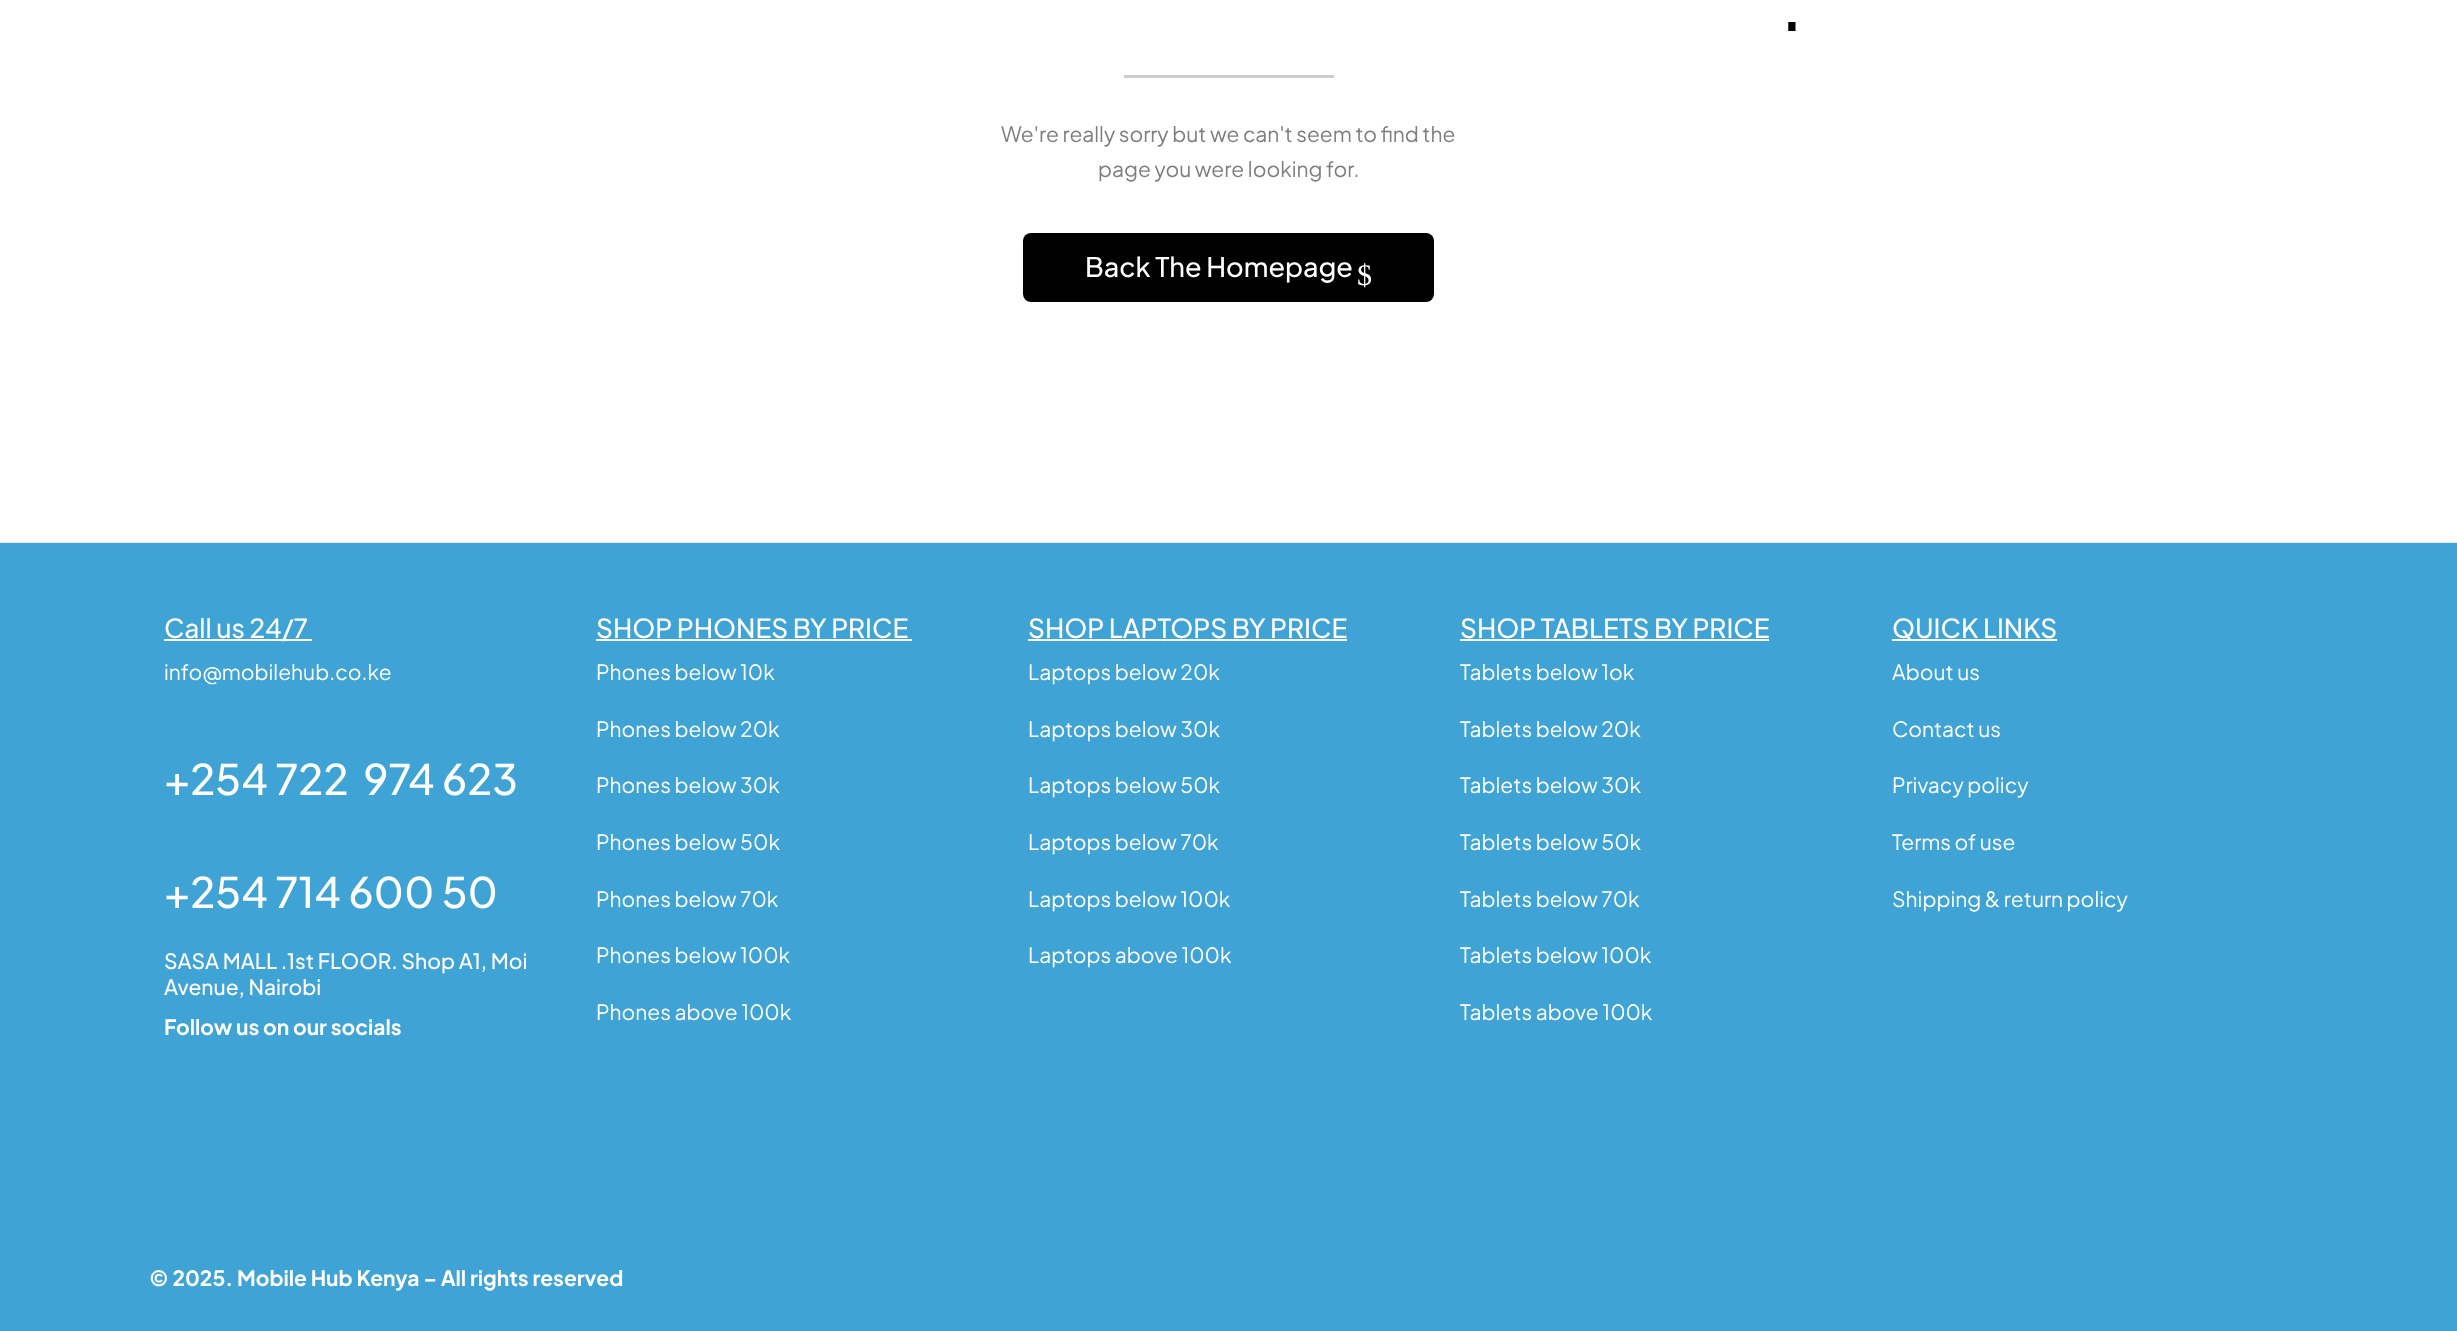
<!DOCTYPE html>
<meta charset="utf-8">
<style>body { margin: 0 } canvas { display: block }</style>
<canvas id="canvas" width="2457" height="1331"></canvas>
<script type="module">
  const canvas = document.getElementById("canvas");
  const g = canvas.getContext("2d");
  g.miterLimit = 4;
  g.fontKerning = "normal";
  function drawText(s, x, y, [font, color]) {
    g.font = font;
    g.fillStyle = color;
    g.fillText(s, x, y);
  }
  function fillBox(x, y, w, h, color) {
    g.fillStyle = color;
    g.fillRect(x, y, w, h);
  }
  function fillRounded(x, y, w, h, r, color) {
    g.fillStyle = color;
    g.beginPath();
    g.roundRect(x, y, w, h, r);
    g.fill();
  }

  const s1 = ["500 75px Plus Jakarta Sans", "#000000"];
  const s2 = ["21px Plus Jakarta Sans", "#7E7E7E"];
  const s3 = ["500 27px Plus Jakarta Sans", "#FFFFFF"];
  const s4 = ["30px Liberation Serif", "#FFFFFF"];
  const s5 = ["500 26.25px Plus Jakarta Sans", "#FFFFFF"];
  const s6 = ["21px Plus Jakarta Sans", "#FFFFFF"];
  const s7 = ["500 42px Plus Jakarta Sans", "#FFFFFF"];
  const s8 = ["500 21px Plus Jakarta Sans", "#FFFFFF"];
  const s9 = ["bold 21px Plus Jakarta Sans", "#FFFFFF"];

  fillBox(0, 0, 2457, 1331, "#FFFFFF");
  drawText(".", 1780, 31, s1);
  fillBox(1124, 75, 210, 3, "#CCCCCC");
  drawText("We're really sorry but we can't seem to find the", 1001, 142, s2);
  drawText("page you were looking for.", 1098, 177, s2);
  fillRounded(1023, 233, 411, 69, 8, "#000000");
  drawText("Back The Homepage", 1085, 277, s3);
  drawText("$", 1357, 285, s4);
  fillBox(0, 542, 2457, 1, "#E9E9E9");
  fillBox(0, 543, 2457, 788, "#3FA4D5");
  fillBox(164, 639, 148, 2, "#FFFFFF");
  drawText("Call us 24/7", 164, 638, s5);
  drawText("info@mobilehub.co.ke", 164, 680, s6);
  drawText("+254 722  974 623", 164, 795, s7);
  drawText("+254 714 600 50", 164, 908, s7);
  drawText("SASA MALL .1st FLOOR. Shop A1, Moi", 164, 969, s8);
  drawText("Avenue, Nairobi", 164, 995, s8);
  drawText("Follow us on our socials", 164, 1035, s9);
  drawText("SHOP PHONES BY PRICE", 596, 638, s5);
  fillBox(596, 639, 316, 2, "#FFFFFF");
  drawText("Phones below 10k", 596, 680, s6);
  drawText("Phones below 20k", 596, 737, s6);
  drawText("Phones below 30k", 596, 793, s6);
  drawText("Phones below 50k", 596, 850, s6);
  drawText("Phones below 70k", 596, 907, s6);
  drawText("Phones below 100k", 596, 963, s6);
  drawText("Phones above 100k", 596, 1020, s6);
  drawText("SHOP LAPTOPS BY PRICE", 1028, 638, s5);
  fillBox(1028, 639, 319, 2, "#FFFFFF");
  drawText("Laptops below 20k", 1028, 680, s6);
  drawText("Laptops below 30k", 1028, 737, s6);
  drawText("Laptops below 50k", 1028, 793, s6);
  drawText("Laptops below 70k", 1028, 850, s6);
  drawText("Laptops below 100k", 1028, 907, s6);
  drawText("Laptops above 100k", 1028, 963, s6);
  drawText("SHOP TABLETS BY PRICE", 1460, 638, s5);
  fillBox(1460, 639, 309, 2, "#FFFFFF");
  drawText("Tablets below 1ok", 1460, 680, s6);
  drawText("Tablets below 20k", 1460, 737, s6);
  drawText("Tablets below 30k", 1460, 793, s6);
  drawText("Tablets below 50k", 1460, 850, s6);
  drawText("Tablets below 70k", 1460, 907, s6);
  drawText("Tablets below 100k", 1460, 963, s6);
  drawText("Tablets above 100k", 1460, 1020, s6);
  fillBox(1892, 639, 165, 2, "#FFFFFF");
  drawText("QUICK LINKS", 1892, 638, s5);
  drawText("About us", 1892, 680, s6);
  drawText("Contact us", 1892, 737, s6);
  drawText("Privacy policy", 1892, 793, s6);
  drawText("Terms of use", 1892, 850, s6);
  drawText("Shipping & return policy", 1892, 907, s6);
  drawText("© 2025. Mobile Hub Kenya – All rights reserved", 149, 1286, s9);
</script>
